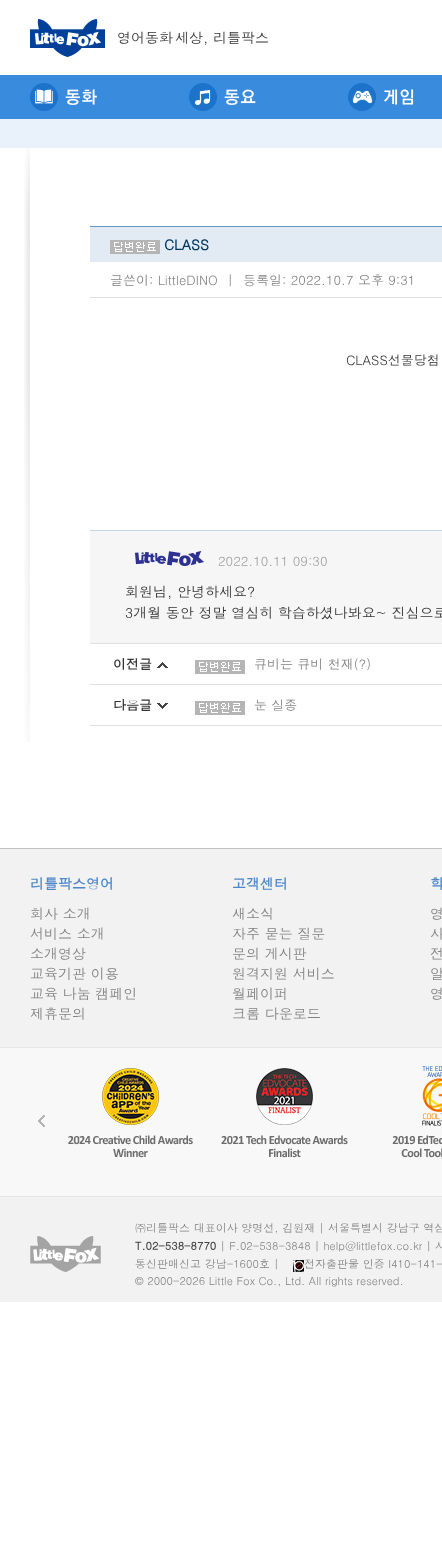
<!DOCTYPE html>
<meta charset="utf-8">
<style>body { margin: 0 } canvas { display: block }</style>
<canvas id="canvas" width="442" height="1548"></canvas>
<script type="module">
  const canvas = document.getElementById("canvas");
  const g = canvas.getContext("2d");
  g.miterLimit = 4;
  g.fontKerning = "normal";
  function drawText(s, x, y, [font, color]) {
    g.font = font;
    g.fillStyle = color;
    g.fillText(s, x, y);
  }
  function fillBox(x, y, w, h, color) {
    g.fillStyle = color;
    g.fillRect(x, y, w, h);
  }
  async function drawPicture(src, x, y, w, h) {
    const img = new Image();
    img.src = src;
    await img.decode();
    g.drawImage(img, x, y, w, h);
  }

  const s1 = ["14px Dotum", "#333333"];
  const s2 = ["bold 14px Dotum", "#003663"];
  const s3 = ["13px Dotum", "#838383"];
  const s4 = ["13px Dotum", "#333333"];
  const s5 = ["13px Dotum", "#A1A1A1"];
  const s6 = ["bold 13px Dotum", "#333333"];
  const s7 = ["bold 14px Dotum", "#4E87CA"];
  const s8 = ["14px Dotum", "#838383"];
  const s9 = ["11px Dotum", "#838383"];
  const s10 = ["bold 11px Dotum", "#444444"];

  fillBox(0, 0, 442, 1548, "#FFFFFF");
  await drawPicture("pic1.png", 30, 19, 75, 38);
  drawText("영어동", 117, 43, s1);
  g.letterSpacing = "2px";
  drawText("화", 159, 43, s1);
  g.letterSpacing = "0px";
  drawText("세상, 리틀팍스", 175, 43, s1);
  fillBox(0, 75, 442, 44, "#398BDE");
  await drawPicture("pic2.png", 30, 83, 67, 28);
  await drawPicture("pic3.png", 189, 83, 67, 28);
  await drawPicture("pic4.png", 348, 83, 66, 28);
  fillBox(0, 119, 442, 29, "#E9F1FB");
  await drawPicture("pic5.png", 24, 148, 6, 594);
  fillBox(90, 227, 352, 35, "#E2EBF3");
  fillBox(90, 226, 352, 1, "#6395C5");
  await drawPicture("pic6.png", 110, 240, 50, 14);
  drawText("CLASS", 164, 250, s2);
  fillBox(90, 297, 352, 1, "#E0E0E0");
  drawText("글쓴이: LittleDINO", 110, 285, s3);
  drawText("|", 227, 285, s3);
  drawText("등록일: 2022.10.7 오후 9:31", 243, 285, s3);
  drawText("CLASS선물당첨", 346, 365, s4);
  fillBox(90, 531, 352, 112, "#F6F6F6");
  fillBox(90, 530, 352, 1, "#C5D7E8");
  await drawPicture("pic7.png", 135, 551, 69, 15);
  drawText("2022.10.11 09:30", 218, 566, s5);
  drawText("회원님, 안녕하세요?", 125, 597, s1);
  drawText("3개월 동안 정말 열심히 학습하셨나봐요~ 진심으로", 125, 618, s1);
  fillBox(90, 643, 352, 1, "#E0E0E0");
  drawText("이전글", 113, 669, s6);
  await drawPicture("pic8.png", 157, 662, 11, 6);
  fillBox(90, 684, 352, 1, "#E0E0E0");
  await drawPicture("pic6.png", 195, 660, 50, 14);
  drawText("큐비는 큐비 천재(?)", 254, 669, s3);
  drawText("다음글", 113, 710, s6);
  await drawPicture("pic9.png", 157, 703, 11, 6);
  fillBox(90, 725, 352, 1, "#E0E0E0");
  await drawPicture("pic6.png", 195, 701, 50, 14);
  drawText("눈 실종", 254, 710, s3);
  fillBox(0, 849, 442, 453, "#F2F2F2");
  fillBox(0, 848, 442, 1, "#C1C1C1");
  drawText("리틀팍스영어", 30, 889, s7);
  drawText("회사 소개", 30, 919, s8);
  drawText("서비스 소개", 30, 939, s8);
  drawText("소개영상", 30, 959, s8);
  drawText("교육기관 이용", 30, 979, s8);
  drawText("교육 나눔 캠페인", 30, 999, s8);
  drawText("제휴문의", 30, 1019, s8);
  drawText("고객센터", 232, 889, s7);
  drawText("새소식", 232, 919, s8);
  drawText("자주 묻는 질문", 232, 939, s8);
  drawText("문의 게시판", 232, 959, s8);
  drawText("원격지원 서비스", 232, 979, s8);
  drawText("월페이퍼", 232, 999, s8);
  drawText("크롬 다운로드", 232, 1019, s8);
  drawText("학", 430, 889, s7);
  drawText("영", 430, 919, s8);
  drawText("사", 430, 939, s8);
  drawText("전", 430, 959, s8);
  drawText("알", 430, 979, s8);
  drawText("영", 430, 999, s8);
  fillBox(0, 1048, 442, 148, "#F8F8F8");
  fillBox(0, 1047, 442, 1, "#E7E7E7");
  fillBox(0, 1196, 442, 1, "#E7E7E7");
  await drawPicture("pic10.png", 38, 1115, 7, 12);
  await drawPicture("pic11.png", 68, 1068, 125, 90);
  await drawPicture("pic12.png", 221, 1068, 127, 90);
  await drawPicture("pic13.png", 392, 1066, 50, 92);
  await drawPicture("pic14.png", 30, 1236, 71, 36);
  drawText("㈜리틀팍스 대표이사 양명선, 김원재 | 서울특별시 강남구 역삼", 135, 1232, s9);
  drawText("T.02-538-8770", 135, 1250, s10);
  drawText("| F.02-538-3848 | help@littlefox.co.kr | 사", 220, 1250, s9);
  drawText("통신판매신고 강남-1600호 |", 135, 1268, s9);
  await drawPicture("pic15.png", 293, 1260, 11, 12);
  drawText("전자출판물 인증 I410-141-", 304, 1268, s9);
  drawText("© 2000-2026 Little Fox Co., Ltd. All rights reserved.", 135, 1285, s9);
</script>
